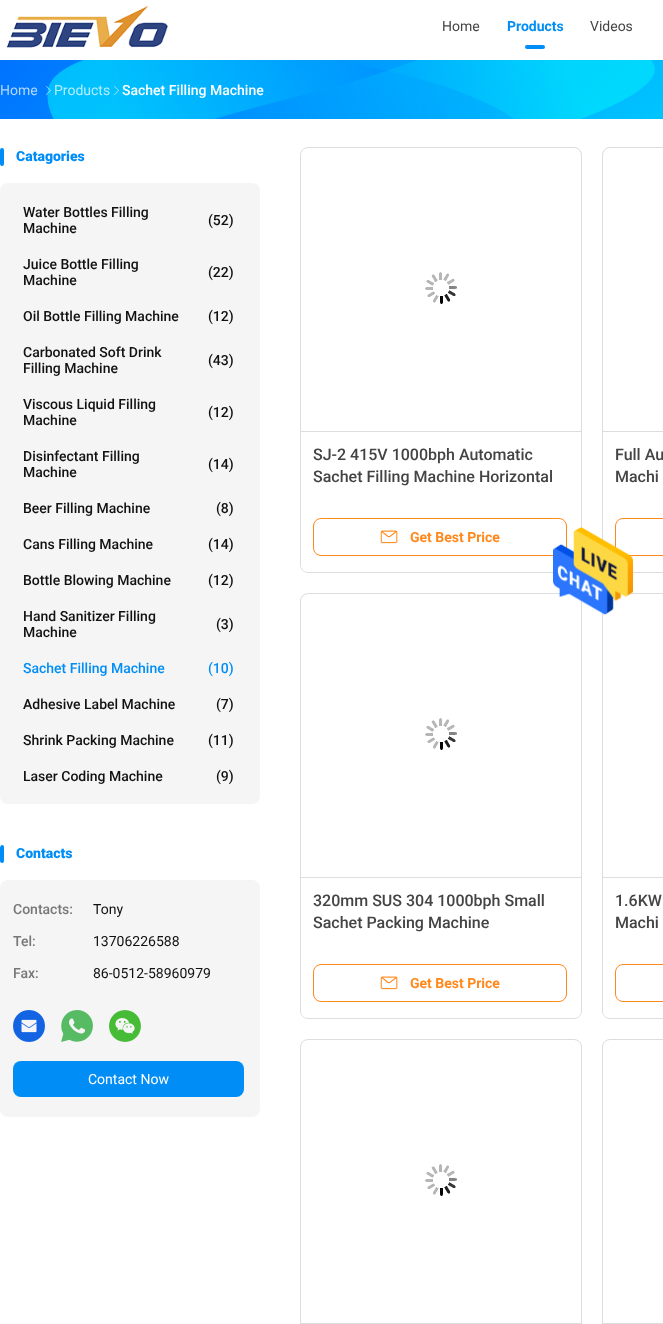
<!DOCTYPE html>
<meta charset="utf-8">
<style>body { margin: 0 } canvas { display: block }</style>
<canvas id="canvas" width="663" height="1324"></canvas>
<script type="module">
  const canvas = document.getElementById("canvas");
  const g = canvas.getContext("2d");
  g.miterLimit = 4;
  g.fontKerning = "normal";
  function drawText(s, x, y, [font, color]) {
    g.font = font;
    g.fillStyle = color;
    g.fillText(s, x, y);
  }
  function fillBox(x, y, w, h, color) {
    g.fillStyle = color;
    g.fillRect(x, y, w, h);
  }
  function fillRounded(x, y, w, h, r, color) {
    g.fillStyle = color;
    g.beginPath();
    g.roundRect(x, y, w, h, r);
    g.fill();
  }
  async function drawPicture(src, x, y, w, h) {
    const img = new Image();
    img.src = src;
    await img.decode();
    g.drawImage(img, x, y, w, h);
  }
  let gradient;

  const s1 = ["14px Roboto", "#444444"];
  const s2 = ["bold 14px Roboto", "#008EF6"];
  const s3 = ["14px Roboto", "#B3D7FF"];
  const s4 = ["14px Roboto", "#B3ECFE"];
  const s5 = ["500 14px Roboto", "#FFFFFF"];
  const s6 = ["900 14px Roboto", "#008EF6"];
  const s7 = ["500 14px Roboto", "#111111"];
  const s8 = ["500 14px Roboto", "#008EF6"];
  const s9 = ["500 14px Roboto", "#777777"];
  const s10 = ["14px Roboto", "#111111"];
  const s11 = ["14px Roboto", "#FFFFFF"];
  const s12 = ["500 16px Roboto", "#444444"];
  const s13 = ["bold 14px Roboto", "#FF891C"];

  fillBox(0, 0, 663, 1324, "#FFFFFF");
  await drawPicture("pic1.png", 6, 6, 162, 42);
  drawText("Home", 442, 31, s1);
  drawText("Products", 507, 31, s2);
  fillRounded(525, 45, 20, 4, 2, "#008EF6");
  drawText("Videos", 590, 31, s1);
  gradient = g.createLinearGradient(151, -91, 512, 270);
  gradient.addColorStop(0, "#0073FF");
  gradient.addColorStop(1, "#00C4FF");
  g.fillStyle = gradient;
  g.fillRect(0, 60, 663, 59);
  await drawPicture("pic2.png", 47, 60, 467, 59);
  drawText("Home", 0, 95, s3);
  await drawPicture("pic3.png", 46, 86, 5, 9);
  drawText("Products", 54, 95, s4);
  await drawPicture("pic4.png", 114, 86, 5, 9);
  await drawPicture("pic5.png", 215, 60, 440, 59);
  drawText("Sachet Filling Machine", 122, 95, s5);
  fillRounded(0, 148, 4, 18, 2, "#008EF6");
  drawText("Catagories", 16, 161, s6);
  fillRounded(0, 183, 260, 621, 8, "#F5F5F5");
  drawText("Water Bottles Filling", 23, 217, s7);
  drawText("(52)", 208, 225, s7);
  drawText("Machine", 23, 233, s7);
  drawText("Juice Bottle Filling", 23, 269, s7);
  drawText("(22)", 208, 277, s7);
  drawText("Machine", 23, 285, s7);
  drawText("Oil Bottle Filling Machine", 23, 321, s7);
  drawText("(12)", 208, 321, s7);
  drawText("Carbonated Soft Drink", 23, 357, s7);
  drawText("(43)", 208, 365, s7);
  drawText("Filling Machine", 23, 373, s7);
  drawText("Viscous Liquid Filling", 23, 409, s7);
  drawText("(12)", 208, 417, s7);
  drawText("Machine", 23, 425, s7);
  drawText("Disinfectant Filling", 23, 461, s7);
  drawText("(14)", 208, 469, s7);
  drawText("Machine", 23, 477, s7);
  drawText("Beer Filling Machine", 23, 513, s7);
  drawText("(8)", 216, 513, s7);
  drawText("Cans Filling Machine", 23, 549, s7);
  drawText("(14)", 208, 549, s7);
  drawText("Bottle Blowing Machine", 23, 585, s7);
  drawText("(12)", 208, 585, s7);
  drawText("Hand Sanitizer Filling", 23, 621, s7);
  drawText("(3)", 216, 629, s7);
  drawText("Machine", 23, 637, s7);
  drawText("Sachet Filling Machine", 23, 673, s8);
  drawText("(10)", 208, 673, s8);
  drawText("Adhesive Label Machine", 23, 709, s7);
  drawText("(7)", 216, 709, s7);
  drawText("Shrink Packing Machine", 23, 745, s7);
  drawText("(11)", 208, 745, s7);
  drawText("Laser Coding Machine", 23, 781, s7);
  drawText("(9)", 216, 781, s7);
  g.save();
  g.beginPath();
  g.roundRect(0, 844, 260, 273, 4);
  g.clip();
  fillRounded(0, 845, 4, 18, 2, "#008EF6");
  g.restore();
  drawText("Contacts", 16, 858, s6);
  fillRounded(0, 880, 260, 237, 8, "#F5F5F5");
  drawText("Contacts:", 13, 914, s9);
  drawText("Tony", 93, 914, s10);
  drawText("Tel:", 13, 946, s9);
  drawText("13706226588", 93, 946, s10);
  drawText("Fax:", 13, 978, s9);
  drawText("86-0512-58960979", 93, 978, s10);
  await drawPicture("pic6.png", 13, 1010, 32, 32);
  await drawPicture("pic7.png", 61, 1010, 32, 32);
  await drawPicture("pic8.png", 109, 1010, 32, 32);
  fillRounded(13, 1061, 231, 36, 8, "#008EF6");
  drawText("Contact Now", 88, 1084, s11);
  g.beginPath();
  g.roundRect(300.5, 147.5, 281, 425, 7.5);
  g.strokeStyle = "#DDDDDD";
  g.stroke();
  await drawPicture("pic9.png", 425, 272, 32, 32);
  g.beginPath();
  g.roundRect(301, 431, 280, 141, [0, 0, 7, 7]);
  g.fill();
  fillBox(301, 431, 280, 1, "#DDDDDD");
  drawText("SJ-2 415V 1000bph Automatic", 313, 460, s12);
  drawText("Sachet Filling Machine Horizontal", 313, 482, s12);
  g.beginPath();
  g.roundRect(313.5, 518.5, 253, 37, 7.5);
  g.strokeStyle = "#FF891C";
  g.stroke();
  await drawPicture("pic10.png", 380, 530, 18, 14);
  drawText("Get Best Price", 410, 542, s13);
  g.beginPath();
  g.roundRect(602.5, 147.5, 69, 425, 7.5);
  g.strokeStyle = "#DDDDDD";
  g.stroke();
  fillBox(603, 566, 6, 6, "#FFFFFF");
  fillBox(603, 431, 60, 1, "#DDDDDD");
  drawText("Full Au", 615, 460, s12);
  drawText("Machi", 615, 482, s12);
  g.beginPath();
  g.roundRect(615.5, 518.5, 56, 37, 7.5);
  g.strokeStyle = "#FF891C";
  g.stroke();
  g.beginPath();
  g.roundRect(300.5, 593.5, 281, 425, 7.5);
  g.strokeStyle = "#DDDDDD";
  g.stroke();
  await drawPicture("pic9.png", 425, 718, 32, 32);
  g.fillStyle = "#FFFFFF";
  g.beginPath();
  g.roundRect(301, 877, 280, 141, [0, 0, 7, 7]);
  g.fill();
  fillBox(301, 877, 280, 1, "#DDDDDD");
  drawText("320mm SUS 304 1000bph Small", 313, 906, s12);
  drawText("Sachet Packing Machine", 313, 928, s12);
  g.beginPath();
  g.roundRect(313.5, 964.5, 253, 37, 7.5);
  g.strokeStyle = "#FF891C";
  g.stroke();
  await drawPicture("pic10.png", 380, 976, 18, 14);
  drawText("Get Best Price", 410, 988, s13);
  g.beginPath();
  g.roundRect(602.5, 593.5, 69, 425, 7.5);
  g.strokeStyle = "#DDDDDD";
  g.stroke();
  g.fillStyle = "#FFFFFF";
  g.beginPath();
  g.moveTo(603, 877);
  g.lineTo(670, 877);
  g.lineTo(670, 1011);
  g.bezierCurveTo(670, 1015, 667, 1018, 663, 1018);
  g.lineTo(610, 1018);
  g.bezierCurveTo(606, 1018, 603, 1015, 603, 1011);
  g.closePath();
  g.fill();
  fillBox(603, 877, 60, 1, "#DDDDDD");
  drawText("1.6KW", 615, 906, s12);
  drawText("Machi", 615, 928, s12);
  g.beginPath();
  g.roundRect(615.5, 964.5, 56, 37, 7.5);
  g.strokeStyle = "#FF891C";
  g.stroke();
  g.beginPath();
  g.roundRect(300.5, 1039.5, 281, 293, 7.5);
  g.strokeStyle = "#DDDDDD";
  g.stroke();
  await drawPicture("pic9.png", 425, 1164, 32, 32);
  fillBox(301, 1323, 280, 1, "#DDDDDD");
  g.beginPath();
  g.roundRect(602.5, 1039.5, 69, 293, 7.5);
  g.stroke();
  fillBox(603, 1323, 60, 1, "#DDDDDD");
  await drawPicture("pic11.png", 553, 527, 80, 88);
</script>
